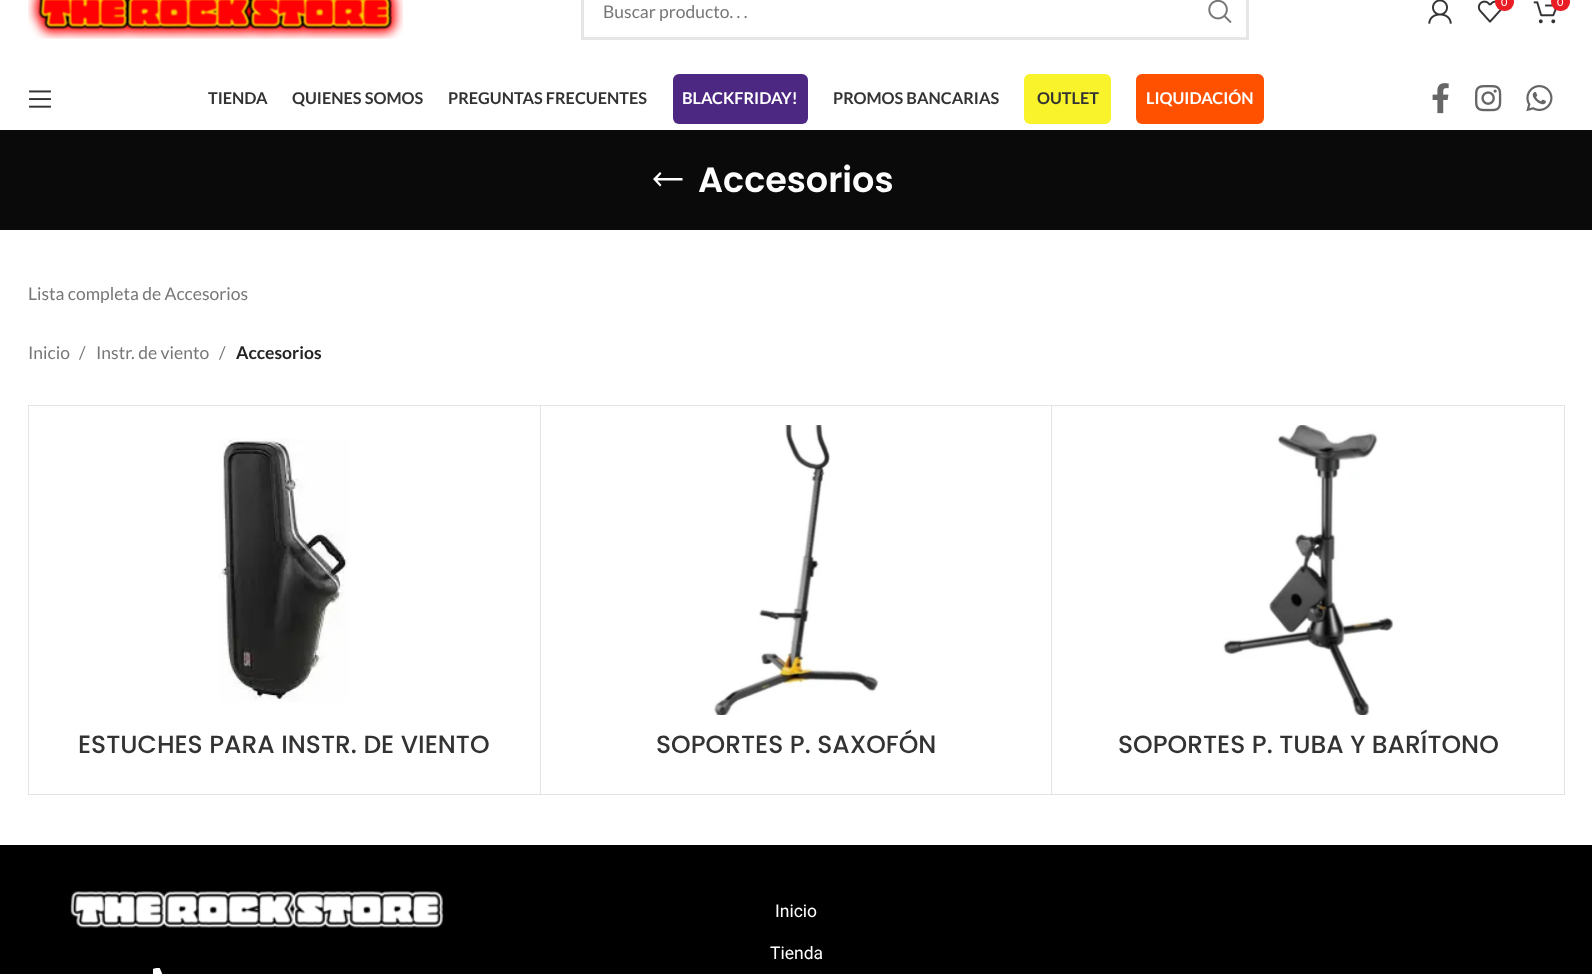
<!DOCTYPE html>
<meta charset="utf-8">
<style>body { margin: 0 } canvas { display: block }</style>
<canvas id="canvas" width="1592" height="974"></canvas>
<script type="module">
  const canvas = document.getElementById("canvas");
  const g = canvas.getContext("2d");
  g.miterLimit = 4;
  g.fontKerning = "normal";
  function drawText(s, x, y, [font, color]) {
    g.font = font;
    g.fillStyle = color;
    g.fillText(s, x, y);
  }
  function fillBox(x, y, w, h, color) {
    g.fillStyle = color;
    g.fillRect(x, y, w, h);
  }
  function fillRounded(x, y, w, h, r, color) {
    g.fillStyle = color;
    g.beginPath();
    g.roundRect(x, y, w, h, r);
    g.fill();
  }
  async function drawPicture(src, x, y, w, h) {
    const img = new Image();
    img.src = src;
    await img.decode();
    g.drawImage(img, x, y, w, h);
  }

  const s1 = ["11px Lato", "#FFFFFF"];
  const s2 = ["17.5px Lato", "#777777"];
  const s3 = ["bold 16.25px Lato", "#333333"];
  const s4 = ["bold 16.25px Lato", "#FFFFFF"];
  const s5 = ["600 35px Poppins", "#FFFFFF"];
  const s6 = ["bold 17.5px Lato", "#242424"];
  const s7 = ["500 25px Poppins", "#333333"];
  const s8 = ["17.5px Roboto", "#FFFFFF"];

  fillBox(0, 0, 1592, 974, "#FFFFFF");
  await drawPicture("pic1.png", 28, 0, 375, 39);
  await drawPicture("pic2.png", 1428, 0, 24, 24);
  await drawPicture("pic3.png", 1477, 0, 25, 23);
  fillRounded(1495, -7, 19, 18, 9, "#EC1C24");
  drawText("0", 1501, 6, s1);
  await drawPicture("pic4.png", 1533, 1, 24, 23);
  fillRounded(1551, -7, 19, 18, 9, "#EC1C24");
  drawText("0", 1557, 6, s1);
  g.strokeStyle = "#E6E6E6";
  g.lineWidth = 3;
  g.strokeRect(582.5, -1.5, 665, 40);
  drawText("Buscar producto. . .", 603, 18, s2);
  await drawPicture("pic5.png", 1208, 0, 24, 24);
  await drawPicture("pic6.png", 29, 90, 22, 18);
  drawText("TIENDA", 208, 104, s3);
  drawText("QUIENES SOMOS", 292, 104, s3);
  drawText("PREGUNTAS FRECUENTES", 448, 104, s3);
  fillRounded(673, 74, 135, 50, 6, "#4C2882");
  drawText("BLACKFRIDAY!", 682, 104, s4);
  drawText("PROMOS BANCARIAS", 833, 104, s3);
  fillRounded(1024, 74, 87, 50, 6, "#F8F32B");
  drawText("OUTLET", 1037, 104, s3);
  fillRounded(1136, 74, 128, 50, 6, "#FF5100");
  drawText("LIQUIDACIÓN", 1146, 104, s4);
  await drawPicture("pic7.png", 1432, 83, 17, 31);
  await drawPicture("pic8.png", 1475, 85, 27, 27);
  await drawPicture("pic9.png", 1526, 85, 27, 27);
  fillBox(0, 130, 1592, 100, "#0A0A0A");
  g.fillStyle = "#FFFFFF";
  g.beginPath();
  g.moveTo(661.5, 185);
  g.lineTo(657.5, 180.5);
  g.lineTo(682.5, 180.5);
  g.lineTo(682.5, 178);
  g.lineTo(657.5, 178);
  g.lineTo(661.5, 173.5);
  g.lineTo(660, 172);
  g.lineTo(653, 179);
  g.lineTo(660, 186.5);
  g.closePath();
  g.fill();
  drawText("Accesorios", 698, 192, s5);
  drawText("Lista completa de Accesorios", 28, 300, s2);
  drawText("Inicio", 28, 359, s2);
  drawText("/", 79, 359, s2);
  drawText("Instr. de viento", 96, 359, s2);
  drawText("/", 219, 359, s2);
  drawText("Accesorios", 236, 359, s6);
  fillBox(28, 405, 1, 390, "#E4E4E4");
  g.beginPath();
  g.moveTo(29, 405);
  g.lineTo(541, 405);
  g.lineTo(540, 406);
  g.lineTo(29, 406);
  g.closePath();
  g.fill();
  g.fillStyle = "rgba(0, 0, 0, 0.11)";
  g.beginPath();
  g.moveTo(541, 405);
  g.lineTo(541, 795);
  g.lineTo(540, 794);
  g.lineTo(540, 406);
  g.closePath();
  g.fill();
  g.beginPath();
  g.moveTo(541, 795);
  g.lineTo(29, 795);
  g.lineTo(29, 794);
  g.lineTo(540, 794);
  g.closePath();
  g.fill();
  await drawPicture("pic10.png", 219, 438, 130, 264);
  drawText("ESTUCHES PARA INSTR. DE VIENTO", 78, 753, s7);
  g.fillStyle = "#E4E4E4";
  g.beginPath();
  g.moveTo(541, 405);
  g.lineTo(1052, 405);
  g.lineTo(1051, 406);
  g.lineTo(541, 406);
  g.closePath();
  g.fill();
  g.fillStyle = "rgba(0, 0, 0, 0.11)";
  g.beginPath();
  g.moveTo(1052, 405);
  g.lineTo(1052, 795);
  g.lineTo(1051, 794);
  g.lineTo(1051, 406);
  g.closePath();
  g.fill();
  g.beginPath();
  g.moveTo(1052, 795);
  g.lineTo(541, 795);
  g.lineTo(541, 794);
  g.lineTo(1051, 794);
  g.closePath();
  g.fill();
  await drawPicture("pic11.png", 713, 425, 166, 290);
  drawText("SOPORTES P. SAXOFÓN", 656, 753, s7);
  g.fillStyle = "#E4E4E4";
  g.beginPath();
  g.moveTo(1052, 405);
  g.lineTo(1565, 405);
  g.lineTo(1564, 406);
  g.lineTo(1052, 406);
  g.closePath();
  g.fill();
  g.fillStyle = "rgba(0, 0, 0, 0.11)";
  g.beginPath();
  g.moveTo(1565, 405);
  g.lineTo(1565, 795);
  g.lineTo(1564, 794);
  g.lineTo(1564, 406);
  g.closePath();
  g.fill();
  g.beginPath();
  g.moveTo(1565, 795);
  g.lineTo(1052, 795);
  g.lineTo(1052, 794);
  g.lineTo(1564, 794);
  g.closePath();
  g.fill();
  await drawPicture("pic12.png", 1223, 425, 171, 290);
  drawText("SOPORTES P. TUBA Y BARÍTONO", 1118, 753, s7);
  fillBox(0, 845, 1592, 129, "#000000");
  await drawPicture("pic13.png", 70, 891, 374, 37);
  await drawPicture("pic14.png", 153, 968, 10, 6);
  drawText("Inicio", 775, 917, s8);
  drawText("Tienda", 770, 959, s8);
</script>
